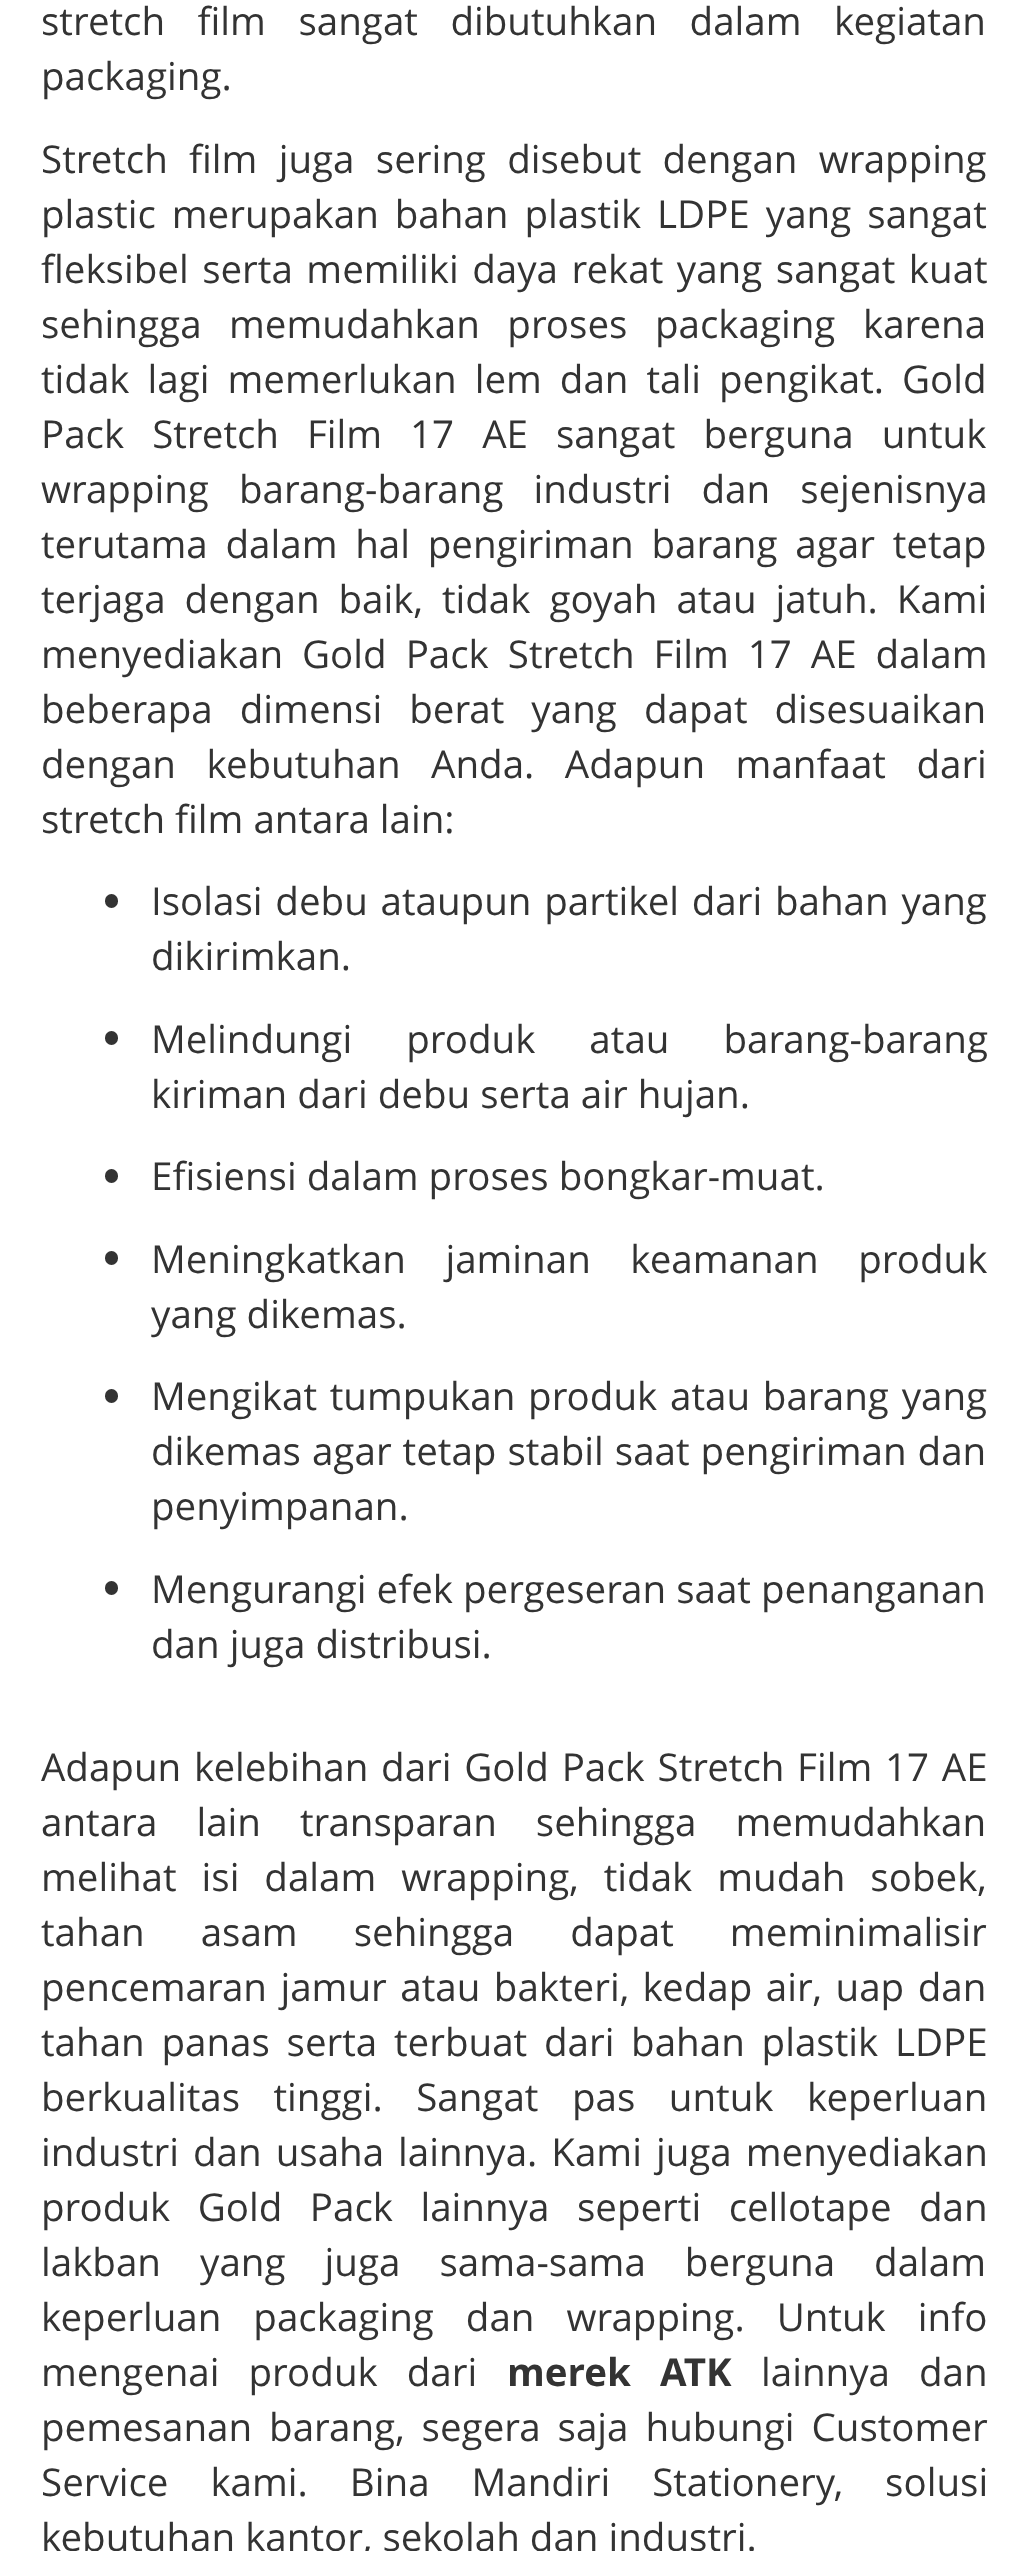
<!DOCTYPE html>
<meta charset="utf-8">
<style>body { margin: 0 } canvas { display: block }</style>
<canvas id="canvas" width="1028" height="2551"></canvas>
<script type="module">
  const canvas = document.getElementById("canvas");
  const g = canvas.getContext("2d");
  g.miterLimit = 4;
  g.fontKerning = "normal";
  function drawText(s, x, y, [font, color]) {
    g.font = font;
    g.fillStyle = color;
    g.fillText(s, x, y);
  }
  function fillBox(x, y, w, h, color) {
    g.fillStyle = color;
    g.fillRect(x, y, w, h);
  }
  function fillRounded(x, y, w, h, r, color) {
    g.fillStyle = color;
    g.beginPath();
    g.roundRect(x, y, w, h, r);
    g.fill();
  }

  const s1 = ["38.5px Open Sans", "#333333"];
  const s2 = ["bold 38.5px Open Sans", "#333333"];

  fillBox(0, 0, 1028, 2551, "#FFFFFF");
  g.wordSpacing = "22.5px";
  drawText("stretch film sangat dibutuhkan dalam kegiatan", 41, 35, s1);
  g.wordSpacing = "0px";
  drawText("packaging.", 41, 90, s1);
  g.wordSpacing = "11.25px";
  drawText("Stretch film juga sering disebut dengan wrapping", 41, 173, s1);
  g.wordSpacing = "6px";
  drawText("plastic merupakan bahan plastik LDPE yang sangat", 41, 228, s1);
  g.wordSpacing = "3.5px";
  drawText("fleksibel serta memiliki daya rekat yang sangat kuat", 41, 283, s1);
  g.wordSpacing = "17.5px";
  drawText("sehingga memudahkan proses packaging karena", 41, 338, s1);
  g.wordSpacing = "8px";
  drawText("tidak lagi memerlukan lem dan tali pengikat. Gold", 41, 393, s1);
  g.wordSpacing = "18px";
  drawText("Pack Stretch Film 17 AE sangat berguna untuk", 41, 448, s1);
  g.wordSpacing = "20px";
  drawText("wrapping barang-barang industri dan sejenisnya", 41, 503, s1);
  g.wordSpacing = "7.75px";
  drawText("terutama dalam hal pengiriman barang agar tetap", 41, 558, s1);
  g.wordSpacing = "9px";
  drawText("terjaga dengan baik, tidak goyah atau jatuh. Kami", 41, 613, s1);
  drawText("menyediakan Gold Pack Stretch Film 17 AE dalam", 41, 668, s1);
  g.wordSpacing = "17px";
  drawText("beberapa dimensi berat yang dapat disesuaikan", 41, 723, s1);
  g.wordSpacing = "20.5px";
  drawText("dengan kebutuhan Anda. Adapun manfaat dari", 41, 778, s1);
  g.wordSpacing = "0px";
  drawText("stretch film antara lain:", 41, 833, s1);
  fillRounded(105, 894, 13, 14, 6.5, "#333333");
  g.wordSpacing = "2.75px";
  drawText("Isolasi debu ataupun partikel dari bahan yang", 151, 915, s1);
  g.wordSpacing = "0px";
  drawText("dikirimkan.", 151, 970, s1);
  fillRounded(105, 1031, 13, 14, 6.5, "#333333");
  g.wordSpacing = "44px";
  drawText("Melindungi produk atau barang-barang", 151, 1053, s1);
  g.wordSpacing = "0px";
  drawText("kiriman dari debu serta air hujan.", 151, 1108, s1);
  fillRounded(105, 1169, 13, 14, 6.5, "#333333");
  drawText("Efisiensi dalam proses bongkar-muat.", 151, 1190, s1);
  fillRounded(105, 1251, 13, 14, 6.5, "#333333");
  g.wordSpacing = "29.5px";
  drawText("Meningkatkan jaminan keamanan produk", 151, 1273, s1);
  g.wordSpacing = "0px";
  drawText("yang dikemas.", 151, 1328, s1);
  fillRounded(105, 1389, 13, 14, 6.5, "#333333");
  g.wordSpacing = "2.75px";
  drawText("Mengikat tumpukan produk atau barang yang", 151, 1410, s1);
  g.wordSpacing = "1px";
  drawText("dikemas agar tetap stabil saat pengiriman dan", 151, 1465, s1);
  g.wordSpacing = "0px";
  drawText("penyimpanan.", 151, 1520, s1);
  fillRounded(105, 1581, 13, 14, 6.5, "#333333");
  drawText("Mengurangi efek pergeseran saat penanganan", 151, 1603, s1);
  drawText("dan juga distribusi.", 151, 1658, s1);
  g.wordSpacing = "2.75px";
  drawText("Adapun kelebihan dari Gold Pack Stretch Film 17 AE", 41, 1781, s1);
  g.wordSpacing = "29px";
  drawText("antara lain transparan sehingga memudahkan", 41, 1836, s1);
  g.wordSpacing = "15px";
  drawText("melihat isi dalam wrapping, tidak mudah sobek,", 41, 1891, s1);
  g.wordSpacing = "46px";
  drawText("tahan asam sehingga dapat meminimalisir", 41, 1946, s1);
  g.wordSpacing = "3.5px";
  drawText("pencemaran jamur atau bakteri, kedap air, uap dan", 41, 2001, s1);
  g.wordSpacing = "6.75px";
  drawText("tahan panas serta terbuat dari bahan plastik LDPE", 41, 2056, s1);
  g.wordSpacing = "23.5px";
  drawText("berkualitas tinggi. Sangat pas untuk keperluan", 41, 2111, s1);
  g.wordSpacing = "4px";
  drawText("industri dan usaha lainnya. Kami juga menyediakan", 41, 2166, s1);
  g.wordSpacing = "17.5px";
  drawText("produk Gold Pack lainnya seperti cellotape dan", 41, 2221, s1);
  g.wordSpacing = "29px";
  drawText("lakban yang juga sama-sama berguna dalam", 41, 2276, s1);
  g.wordSpacing = "22px";
  drawText("keperluan packaging dan wrapping. Untuk info", 41, 2331, s1);
  g.wordSpacing = "19px";
  drawText("mengenai produk dari", 41, 2386, s1);
  drawText("merek ATK", 507, 2386, s2);
  drawText("lainnya dan", 761, 2386, s1);
  g.wordSpacing = "7px";
  drawText("pemesanan barang, segera saja hubungi Customer", 41, 2441, s1);
  g.wordSpacing = "32px";
  drawText("Service kami. Bina Mandiri Stationery, solusi", 41, 2496, s1);
  g.wordSpacing = "0px";
  drawText("kebutuhan kantor, sekolah dan industri.", 41, 2551, s1);
</script>
